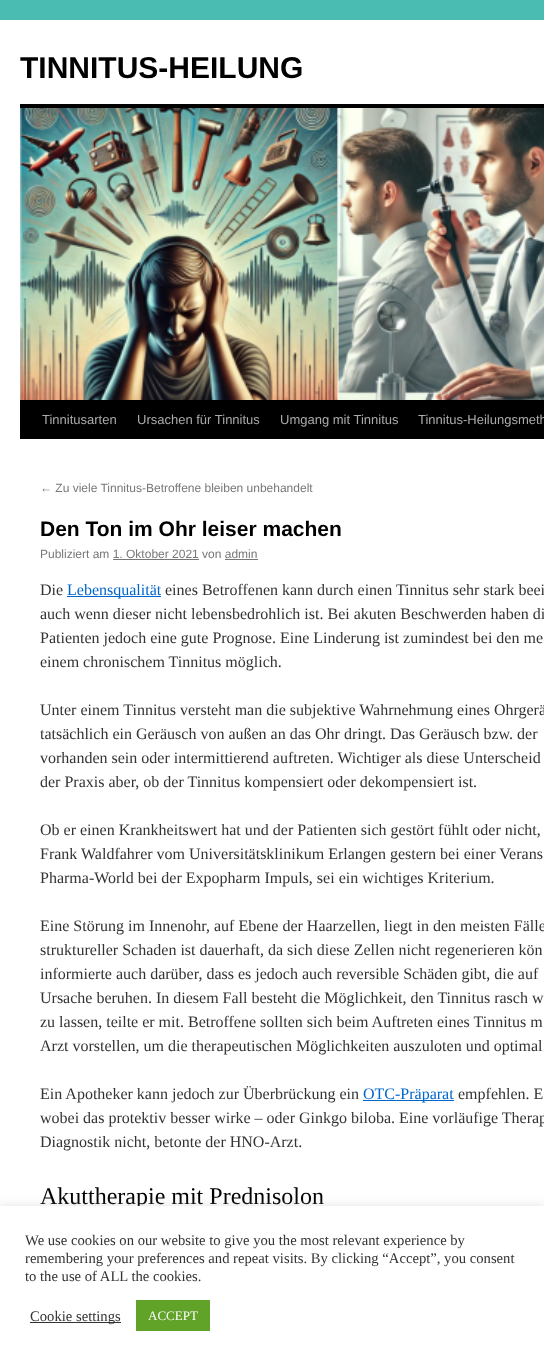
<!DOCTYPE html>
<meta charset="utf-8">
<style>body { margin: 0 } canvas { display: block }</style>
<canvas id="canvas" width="544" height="1361"></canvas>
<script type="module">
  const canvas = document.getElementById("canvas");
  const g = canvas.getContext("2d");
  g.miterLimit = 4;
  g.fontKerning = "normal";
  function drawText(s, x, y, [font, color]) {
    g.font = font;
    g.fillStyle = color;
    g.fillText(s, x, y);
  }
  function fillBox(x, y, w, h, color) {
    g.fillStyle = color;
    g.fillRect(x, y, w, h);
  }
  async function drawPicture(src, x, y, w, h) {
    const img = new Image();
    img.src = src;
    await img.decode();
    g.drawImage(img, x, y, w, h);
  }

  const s1 = ["bold 30px Liberation Sans", "#000000"];
  const s2 = ["13px Liberation Sans", "#AAAAAA"];
  const s3 = ["12px Liberation Sans", "#777777"];
  const s4 = ["bold 21px Liberation Sans", "#000000"];
  const s5 = ["16px Liberation Serif", "#333333"];
  const s6 = ["16px Liberation Serif", "#0066CC"];
  const s7 = ["24px Liberation Serif", "#000000"];
  const s8 = ["14.65px Liberation Serif", "#333333"];
  const s9 = ["13px Liberation Serif", "#FFFFFF"];

  fillBox(0, 0, 544, 1361, "#4BBCB1");
  fillBox(0, 20, 544, 1186, "#FFFFFF");
  drawText("TINNITUS-HEILUNG", 20, 78, s1);
  fillBox(20, 104, 524, 4, "#000000");
  fillBox(20, 400, 524, 39, "#000000");
  await drawPicture("pic1.png", 20, 108, 524, 292);
  drawText("Tinnitusarten", 42, 424, s2);
  drawText("Ursachen für Tinnitus", 137, 424, s2);
  drawText("Umgang mit Tinnitus", 280, 424, s2);
  drawText("Tinnitus-Heilungsmeth", 418, 424, s2);
  drawText("← Zu viele Tinnitus-Betroffene bleiben unbehandelt", 40, 492, s3);
  drawText("Den Ton im Ohr leiser machen", 40, 536, s4);
  drawText("Publiziert am 1. Oktober 2021 von admin", 40, 558, s3);
  fillBox(113, 559, 86, 1, "#777777");
  fillBox(225, 559, 33, 1, "#777777");
  drawText("Die", 40, 595, s5);
  fillBox(67, 596, 94, 1, "#0066CC");
  drawText("Lebensqualität", 67, 595, s6);
  drawText("eines Betroffenen kann durch einen Tinnitus sehr stark beei", 165, 595, s5);
  drawText("auch wenn dieser nicht lebensbedrohlich ist. Bei akuten Beschwerden haben di", 40, 619, s5);
  drawText("Patienten jedoch eine gute Prognose. Eine Linderung ist zumindest bei den me", 40, 643, s5);
  drawText("einem chronischem Tinnitus möglich.", 40, 667, s5);
  drawText("Unter einem Tinnitus versteht man die subjektive Wahrnehmung eines Ohrgerä", 40, 715, s5);
  drawText("tatsächlich ein Geräusch von außen an das Ohr dringt. Das Geräusch bzw. der", 40, 739, s5);
  drawText("vorhanden sein oder intermittierend auftreten. Wichtiger als diese Unterscheid", 40, 763, s5);
  drawText("der Praxis aber, ob der Tinnitus kompensiert oder dekompensiert ist.", 40, 787, s5);
  drawText("Ob er einen Krankheitswert hat und der Patienten sich gestört fühlt oder nicht,", 40, 835, s5);
  drawText("Frank Waldfahrer vom Universitätsklinikum Erlangen gestern bei einer Verans", 40, 859, s5);
  drawText("Pharma-World bei der Expopharm Impuls, sei ein wichtiges Kriterium.", 40, 883, s5);
  drawText("Eine Störung im Innenohr, auf Ebene der Haarzellen, liegt in den meisten Fälle", 40, 931, s5);
  drawText("struktureller Schaden ist dauerhaft, da sich diese Zellen nicht regenerieren kön", 40, 955, s5);
  drawText("informierte auch darüber, dass es jedoch auch reversible Schäden gibt, die auf", 40, 979, s5);
  drawText("Ursache beruhen. In diesem Fall besteht die Möglichkeit, den Tinnitus rasch w", 40, 1003, s5);
  drawText("zu lassen, teilte er mit. Betroffene sollten sich beim Auftreten eines Tinnitus m", 40, 1027, s5);
  drawText("Arzt vorstellen, um die therapeutischen Möglichkeiten auszuloten und optimal", 40, 1051, s5);
  drawText("Ein Apotheker kann jedoch zur Überbrückung ein", 40, 1099, s5);
  fillBox(363, 1100, 91, 1, "#0066CC");
  drawText("OTC-Präparat", 363, 1099, s6);
  drawText("empfehlen. E", 458, 1099, s5);
  drawText("wobei das protektiv besser wirke – oder Ginkgo biloba. Eine vorläufige Therap", 40, 1123, s5);
  drawText("Diagnostik nicht, betonte der HNO-Arzt.", 40, 1147, s5);
  drawText("Akuttherapie mit Prednisolon", 40, 1204, s7);
  g.fillStyle = "rgba(172, 171, 171, 0.3)";
  g.filter = "blur(5px)";
  g.beginPath();
  g.rect(0, 1205, 544, 155);
  g.fill();
  g.filter = "none";
  fillBox(0, 1206, 544, 155, "#FFFFFF");
  drawText("We use cookies on our website to give you the most relevant experience by", 25, 1245, s8);
  drawText("remembering your preferences and repeat visits. By clicking “Accept”, you consent", 25, 1263, s8);
  drawText("to the use of ALL the cookies.", 25, 1281, s8);
  fillBox(30, 1322, 91, 1, "#333333");
  drawText("Cookie settings", 30, 1321, s8);
  fillBox(136, 1300, 74, 31, "#61A229");
  drawText("ACCEPT", 148, 1320, s9);
</script>
